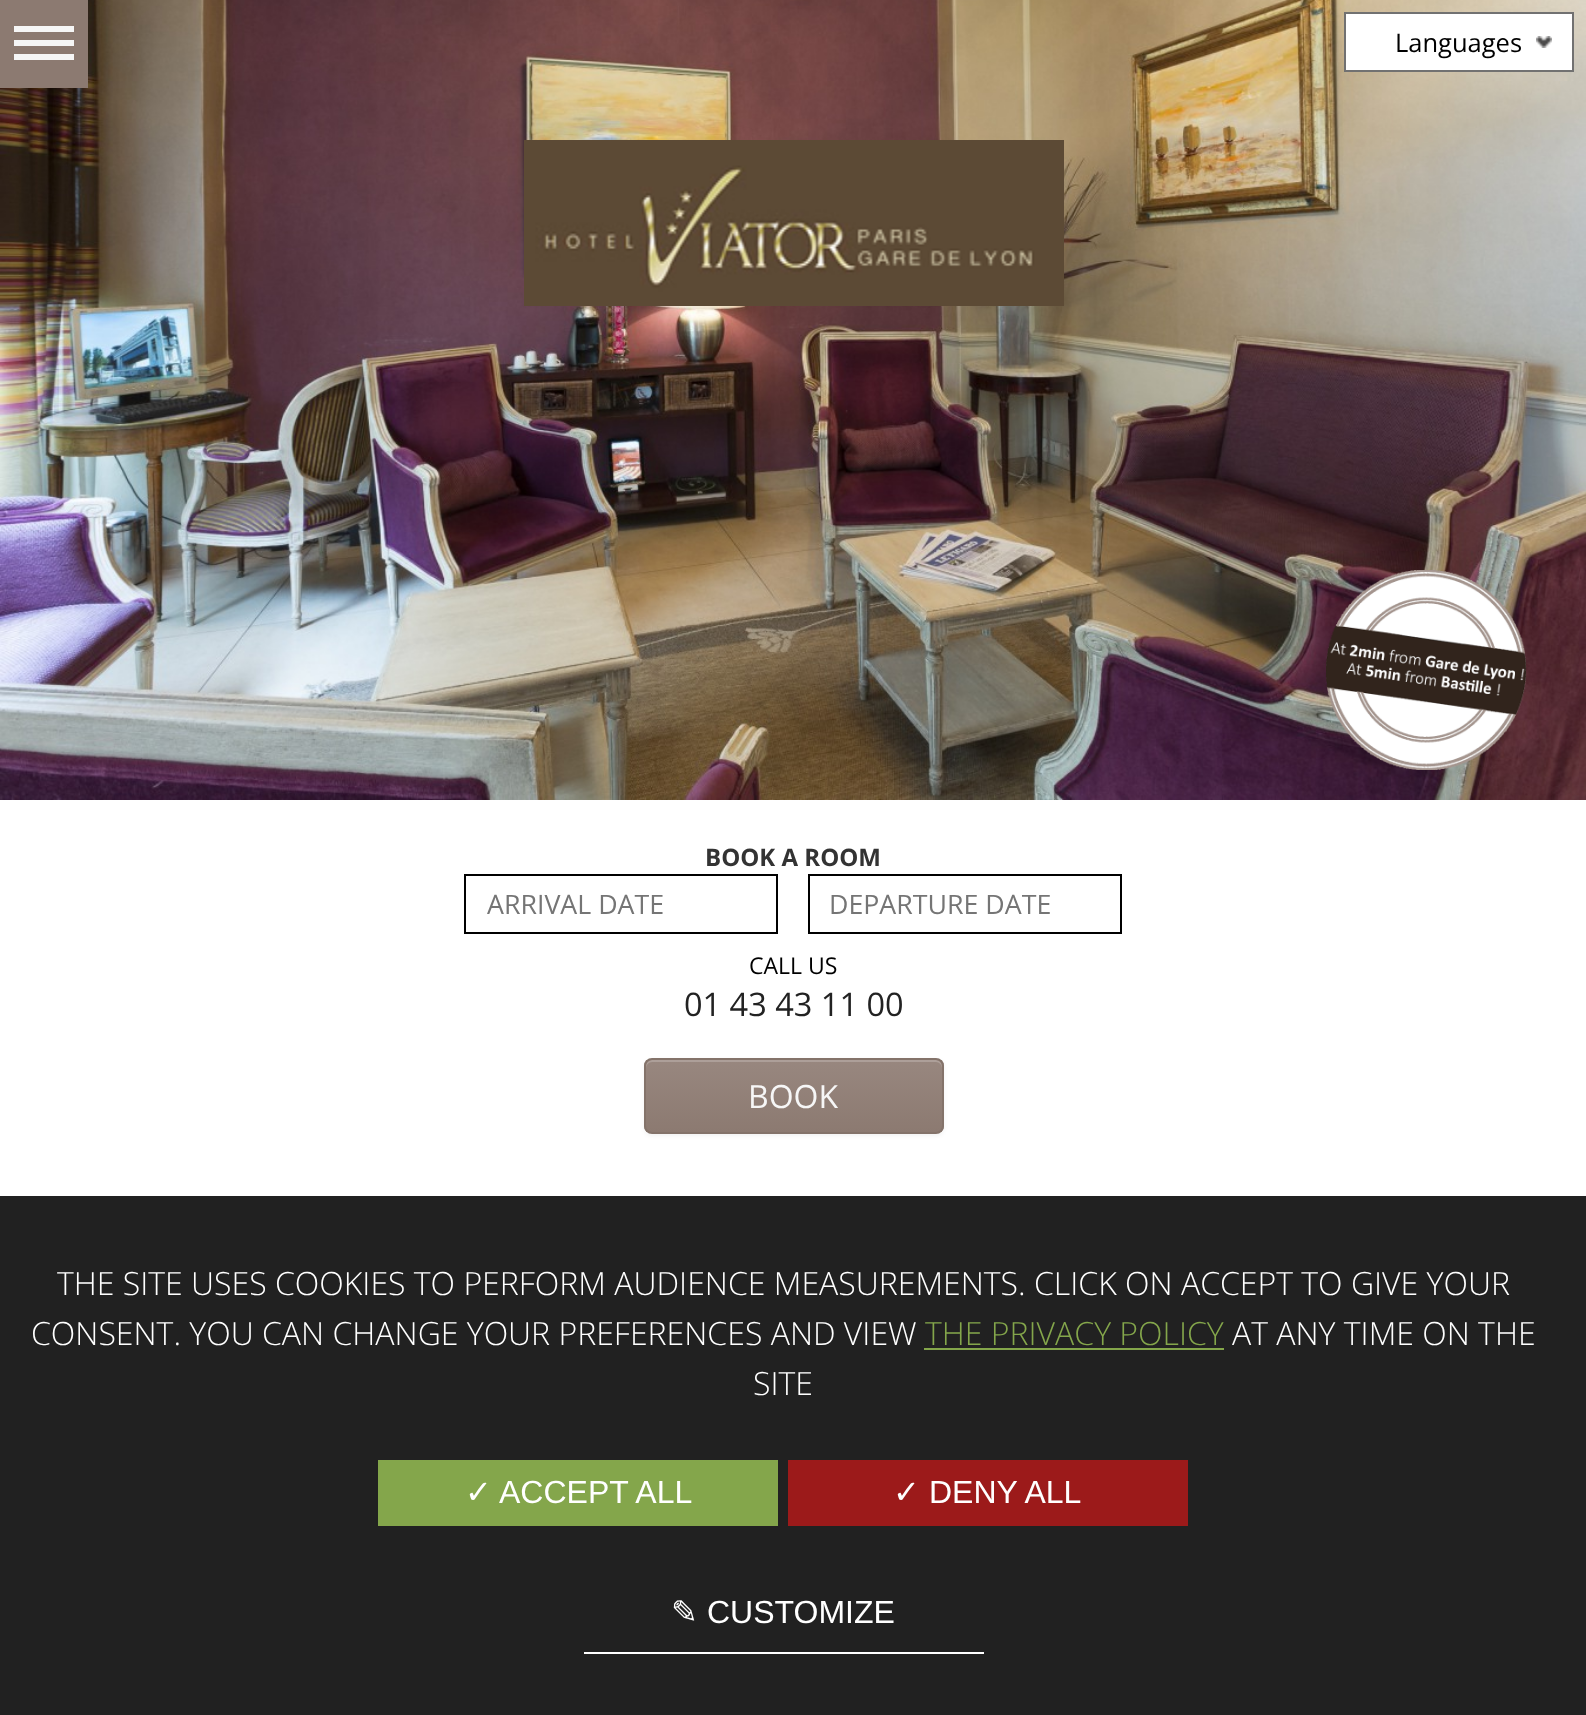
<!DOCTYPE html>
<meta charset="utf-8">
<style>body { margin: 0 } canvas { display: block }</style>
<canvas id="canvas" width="1586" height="1715"></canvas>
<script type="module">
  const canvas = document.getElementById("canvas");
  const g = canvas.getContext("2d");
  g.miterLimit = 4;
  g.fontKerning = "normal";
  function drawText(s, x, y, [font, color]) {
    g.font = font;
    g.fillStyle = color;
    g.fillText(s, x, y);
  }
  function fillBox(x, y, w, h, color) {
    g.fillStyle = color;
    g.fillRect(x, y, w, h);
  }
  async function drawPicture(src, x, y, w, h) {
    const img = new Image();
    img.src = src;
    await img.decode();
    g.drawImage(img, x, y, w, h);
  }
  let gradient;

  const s1 = ["25.5px Open Sans", "#000000"];
  const s2 = ["bold 24px Open Sans", "#333333"];
  const s3 = ["26.75px Open Sans", "#757575"];
  const s4 = ["23px Open Sans", "#000000"];
  const s5 = ["32.5px Open Sans", "#222222"];
  const s6 = ["32px Open Sans", "#F6F6F6"];
  const s7 = ["300 32px Open Sans", "#FFFFFF"];
  const s8 = ["300 32px Open Sans", "#84A64B"];
  const s9 = ["32px DejaVu Sans", "#FFFFFF"];
  const s10 = ["32px Liberation Sans", "#FFFFFF"];

  fillBox(0, 0, 1586, 1715, "#FFFFFF");
  await drawPicture("pic1.png", 0, 0, 1586, 800);
  fillBox(0, 0, 88, 88, "#8C7A71");
  fillBox(14, 26, 60, 6, "#F6F6F6");
  fillBox(14, 40, 60, 6, "#F6F6F6");
  fillBox(14, 54, 60, 6, "#F6F6F6");
  fillBox(1346, 14, 226, 56, "#FFFFFF");
  await drawPicture("pic2.png", 1536, 36, 16, 12);
  g.strokeStyle = "#717171";
  g.lineWidth = 2;
  g.strokeRect(1345, 13, 228, 58);
  drawText("Languages", 1395, 52, s1);
  await drawPicture("pic3.png", 524, 140, 540, 166);
  await drawPicture("pic4.png", 1326, 570, 200, 200);
  drawText("BOOK A ROOM", 705, 866, s2);
  g.strokeStyle = "#000000";
  g.strokeRect(465, 875, 312, 58);
  drawText("ARRIVAL DATE", 487, 914, s3);
  g.strokeRect(809, 875, 312, 58);
  drawText("DEPARTURE DATE", 829, 914, s3);
  drawText("CALL US", 749, 974, s4);
  drawText("01 43 43 11 00", 684, 1016, s5);
  g.fillStyle = "rgba(0, 0, 0, 0.05)";
  g.filter = "blur(2px)";
  g.beginPath();
  g.roundRect(644, 1060, 300, 76, 8);
  g.fill();
  g.filter = "none";
  g.save();
  g.beginPath();
  g.roundRect(644, 1058, 300, 76, 8);
  g.clip();
  gradient = g.createLinearGradient(794, 1060, 794, 1132);
  gradient.addColorStop(0, "#98877F");
  gradient.addColorStop(1, "#8C7A71");
  g.fillStyle = gradient;
  g.fillRect(644, 1060, 300, 72);
  g.restore();
  g.fillStyle = "#AD9F99";
  g.beginPath();
  g.moveTo(652, 1062);
  g.lineTo(936, 1062);
  g.bezierCurveTo(939, 1062, 942, 1065, 942, 1068);
  g.lineTo(942, 1066);
  g.bezierCurveTo(942, 1063, 939, 1060, 936, 1060);
  g.lineTo(652, 1060);
  g.bezierCurveTo(649, 1060, 646, 1063, 646, 1066);
  g.lineTo(646, 1068);
  g.bezierCurveTo(646, 1065, 649, 1062, 652, 1062);
  g.closePath();
  g.fill();
  g.beginPath();
  g.roundRect(645, 1059, 298, 74, 7);
  g.strokeStyle = "#84736A";
  g.stroke();
  drawText("BOOK", 748, 1108, s6);
  fillBox(0, 1196, 1586, 519, "rgba(0, 0, 0, 0.87)");
  drawText("THE SITE USES COOKIES TO PERFORM AUDIENCE MEASUREMENTS. CLICK ON ACCEPT TO GIVE YOUR", 57, 1295, s7);
  drawText("CONSENT. YOU CAN CHANGE YOUR PREFERENCES AND VIEW", 31, 1345, s7);
  drawText("THE PRIVACY POLICY", 925, 1345, s8);
  fillBox(924, 1348, 300, 2, "#84A64B");
  drawText("AT ANY TIME ON THE", 1232, 1345, s7);
  drawText("SITE", 753, 1395, s7);
  fillBox(378, 1460, 400, 66, "#84A64B");
  drawText("✓", 465, 1503, s9);
  drawText("ACCEPT ALL", 499, 1503, s10);
  fillBox(788, 1460, 400, 66, "#9C1A1A");
  drawText("✓", 893, 1503, s9);
  drawText("DENY ALL", 929, 1503, s10);
  fillBox(584, 1652, 400, 2, "#FFFFFF");
  drawText("✎", 671, 1623, s9);
  drawText("CUSTOMIZE", 707, 1623, s10);
</script>
